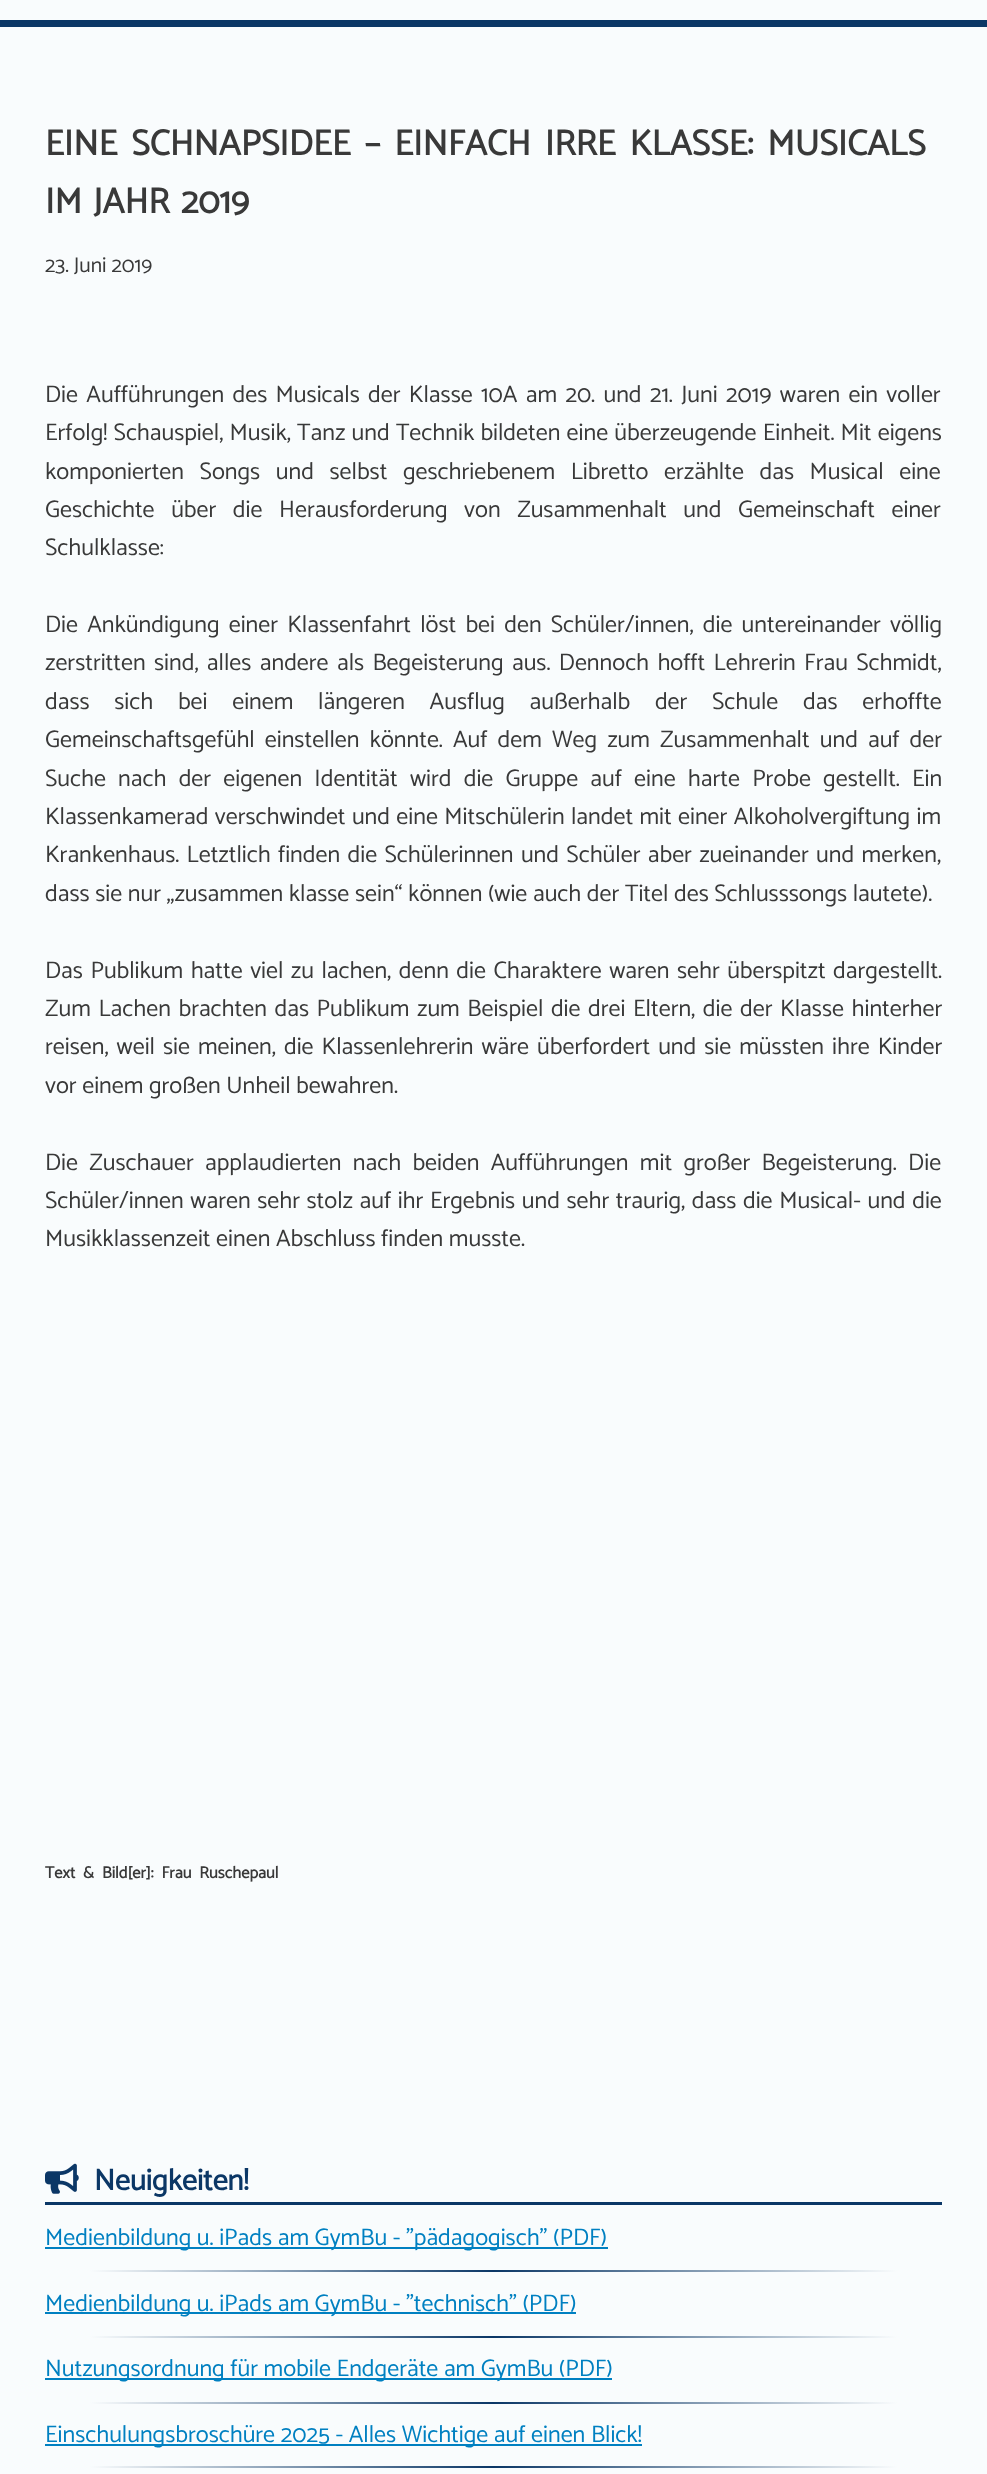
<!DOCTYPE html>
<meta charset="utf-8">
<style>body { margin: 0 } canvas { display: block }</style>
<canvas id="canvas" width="987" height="2474"></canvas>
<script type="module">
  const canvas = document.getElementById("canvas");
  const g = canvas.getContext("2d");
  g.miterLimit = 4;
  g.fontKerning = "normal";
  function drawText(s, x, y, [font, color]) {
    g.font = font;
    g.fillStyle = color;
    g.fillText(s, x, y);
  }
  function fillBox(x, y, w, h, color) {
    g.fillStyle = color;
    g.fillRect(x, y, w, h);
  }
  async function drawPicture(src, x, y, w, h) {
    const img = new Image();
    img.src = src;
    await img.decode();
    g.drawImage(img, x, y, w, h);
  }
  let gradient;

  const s1 = ["bold 36px Catamaran", "#393939"];
  const s2 = ["21.5px Catamaran", "#393939"];
  const s3 = ["24px Catamaran", "#393939"];
  const s4 = ["bold 16.5px Catamaran", "#393939"];
  const s5 = ["bold 30px Catamaran", "#0B3766"];
  const s6 = ["24px Catamaran", "#0080C1"];

  fillBox(0, 0, 987, 2474, "#F9FCFD");
  fillBox(0, 20, 987, 7, "#0B3766");
  g.wordSpacing = "5.5px";
  drawText("EINE SCHNAPSIDEE – EINFACH IRRE KLASSE: MUSICALS", 45, 155, s1);
  g.wordSpacing = "3px";
  drawText("IM JAHR 2019", 45, 213, s1);
  g.wordSpacing = "0px";
  drawText("23. Juni 2019", 45, 272, s2);
  g.wordSpacing = "2.75px";
  drawText("Die Aufführungen des Musicals der Klasse 10A am 20. und 21. Juni 2019 waren ein voller", 45, 402, s3);
  g.wordSpacing = "0.6px";
  drawText("Erfolg! Schauspiel, Musik, Tanz und Technik bildeten eine überzeugende Einheit. Mit eigens", 45, 440, s3);
  g.wordSpacing = "10px";
  drawText("komponierten Songs und selbst geschriebenem Libretto erzählte das Musical eine", 45, 479, s3);
  g.wordSpacing = "11px";
  drawText("Geschichte über die Herausforderung von Zusammenhalt und Gemeinschaft einer", 45, 517, s3);
  g.wordSpacing = "0px";
  drawText("Schulklasse:", 45, 555, s3);
  g.wordSpacing = "3.6px";
  drawText("Die Ankündigung einer Klassenfahrt löst bei den Schüler/innen, die untereinander völlig", 45, 632, s3);
  g.wordSpacing = "2.75px";
  drawText("zerstritten sind, alles andere als Begeisterung aus. Dennoch hofft Lehrerin Frau Schmidt,", 45, 670, s3);
  g.wordSpacing = "19.1px";
  drawText("dass sich bei einem längeren Ausflug außerhalb der Schule das erhoffte", 45, 709, s3);
  g.wordSpacing = "4.5px";
  drawText("Gemeinschaftsgefühl einstellen könnte. Auf dem Weg zum Zusammenhalt und auf der", 45, 747, s3);
  g.wordSpacing = "6.6px";
  drawText("Suche nach der eigenen Identität wird die Gruppe auf eine harte Probe gestellt. Ein", 45, 786, s3);
  g.wordSpacing = "0.75px";
  drawText("Klassenkamerad verschwindet und eine Mitschülerin landet mit einer Alkoholvergiftung im", 45, 824, s3);
  g.wordSpacing = "1.75px";
  drawText("Krankenhaus. Letztlich finden die Schülerinnen und Schüler aber zueinander und merken,", 45, 862, s3);
  g.wordSpacing = "0px";
  drawText("dass sie nur „zusammen klasse sein“ können (wie auch der Titel des Schlusssongs lautete).", 45, 901, s3);
  g.wordSpacing = "1.9px";
  drawText("Das Publikum hatte viel zu lachen, denn die Charaktere waren sehr überspitzt dargestellt.", 45, 978, s3);
  g.wordSpacing = "2px";
  drawText("Zum Lachen brachten das Publikum zum Beispiel die drei Eltern, die der Klasse hinterher", 45, 1016, s3);
  g.wordSpacing = "2.4px";
  drawText("reisen, weil sie meinen, die Klassenlehrerin wäre überfordert und sie müssten ihre Kinder", 45, 1054, s3);
  g.wordSpacing = "0px";
  drawText("vor einem großen Unheil bewahren.", 45, 1093, s3);
  g.wordSpacing = "5.75px";
  drawText("Die Zuschauer applaudierten nach beiden Aufführungen mit großer Begeisterung. Die", 45, 1170, s3);
  g.wordSpacing = "1px";
  drawText("Schüler/innen waren sehr stolz auf ihr Ergebnis und sehr traurig, dass die Musical- und die", 45, 1208, s3);
  g.wordSpacing = "0px";
  drawText("Musikklassenzeit einen Abschluss finden musste.", 45, 1246, s3);
  g.wordSpacing = "4px";
  drawText("Text & Bild[er]: Frau Ruschepaul", 45, 1878, s4);
  fillBox(45, 2202, 897, 3, "#0B3766");
  await drawPicture("pic1.png", 45, 2163, 34, 31);
  g.wordSpacing = "0px";
  drawText("Neuigkeiten!", 94, 2190, s5);
  fillBox(45, 2247, 563, 2, "#0080C1");
  drawText("Medienbildung u. iPads am GymBu - \"pädagogisch\" (PDF)", 45, 2245, s6);
  gradient = g.createLinearGradient(90, 2270, 897, 2270);
  gradient.addColorStop(0, "#F9FCFD");
  gradient.addColorStop(0.5, "#0B3766");
  gradient.addColorStop(1, "#F9FCFD");
  g.fillStyle = gradient;
  g.fillRect(90, 2270, 807, 2);
  fillBox(45, 2312, 531, 2, "#0080C1");
  drawText("Medienbildung u. iPads am GymBu - \"technisch\" (PDF)", 45, 2311, s6);
  gradient = g.createLinearGradient(90, 2336, 897, 2336);
  gradient.addColorStop(0, "#F9FCFD");
  gradient.addColorStop(0.5, "#0B3766");
  gradient.addColorStop(1, "#F9FCFD");
  g.fillStyle = gradient;
  g.fillRect(90, 2336, 807, 2);
  fillBox(45, 2378, 567, 2, "#0080C1");
  drawText("Nutzungsordnung für mobile Endgeräte am GymBu (PDF)", 45, 2376, s6);
  gradient = g.createLinearGradient(90, 2402, 897, 2402);
  gradient.addColorStop(0, "#F9FCFD");
  gradient.addColorStop(0.5, "#0B3766");
  gradient.addColorStop(1, "#F9FCFD");
  g.fillStyle = gradient;
  g.fillRect(90, 2402, 807, 2);
  fillBox(45, 2444, 597, 2, "#0080C1");
  drawText("Einschulungsbroschüre 2025 - Alles Wichtige auf einen Blick!", 45, 2442, s6);
  gradient = g.createLinearGradient(90, 2467, 897, 2467);
  gradient.addColorStop(0, "#F9FCFD");
  gradient.addColorStop(0.5, "#0B3766");
  gradient.addColorStop(1, "#F9FCFD");
  g.fillStyle = gradient;
  g.fillRect(90, 2466, 807, 2);
</script>
